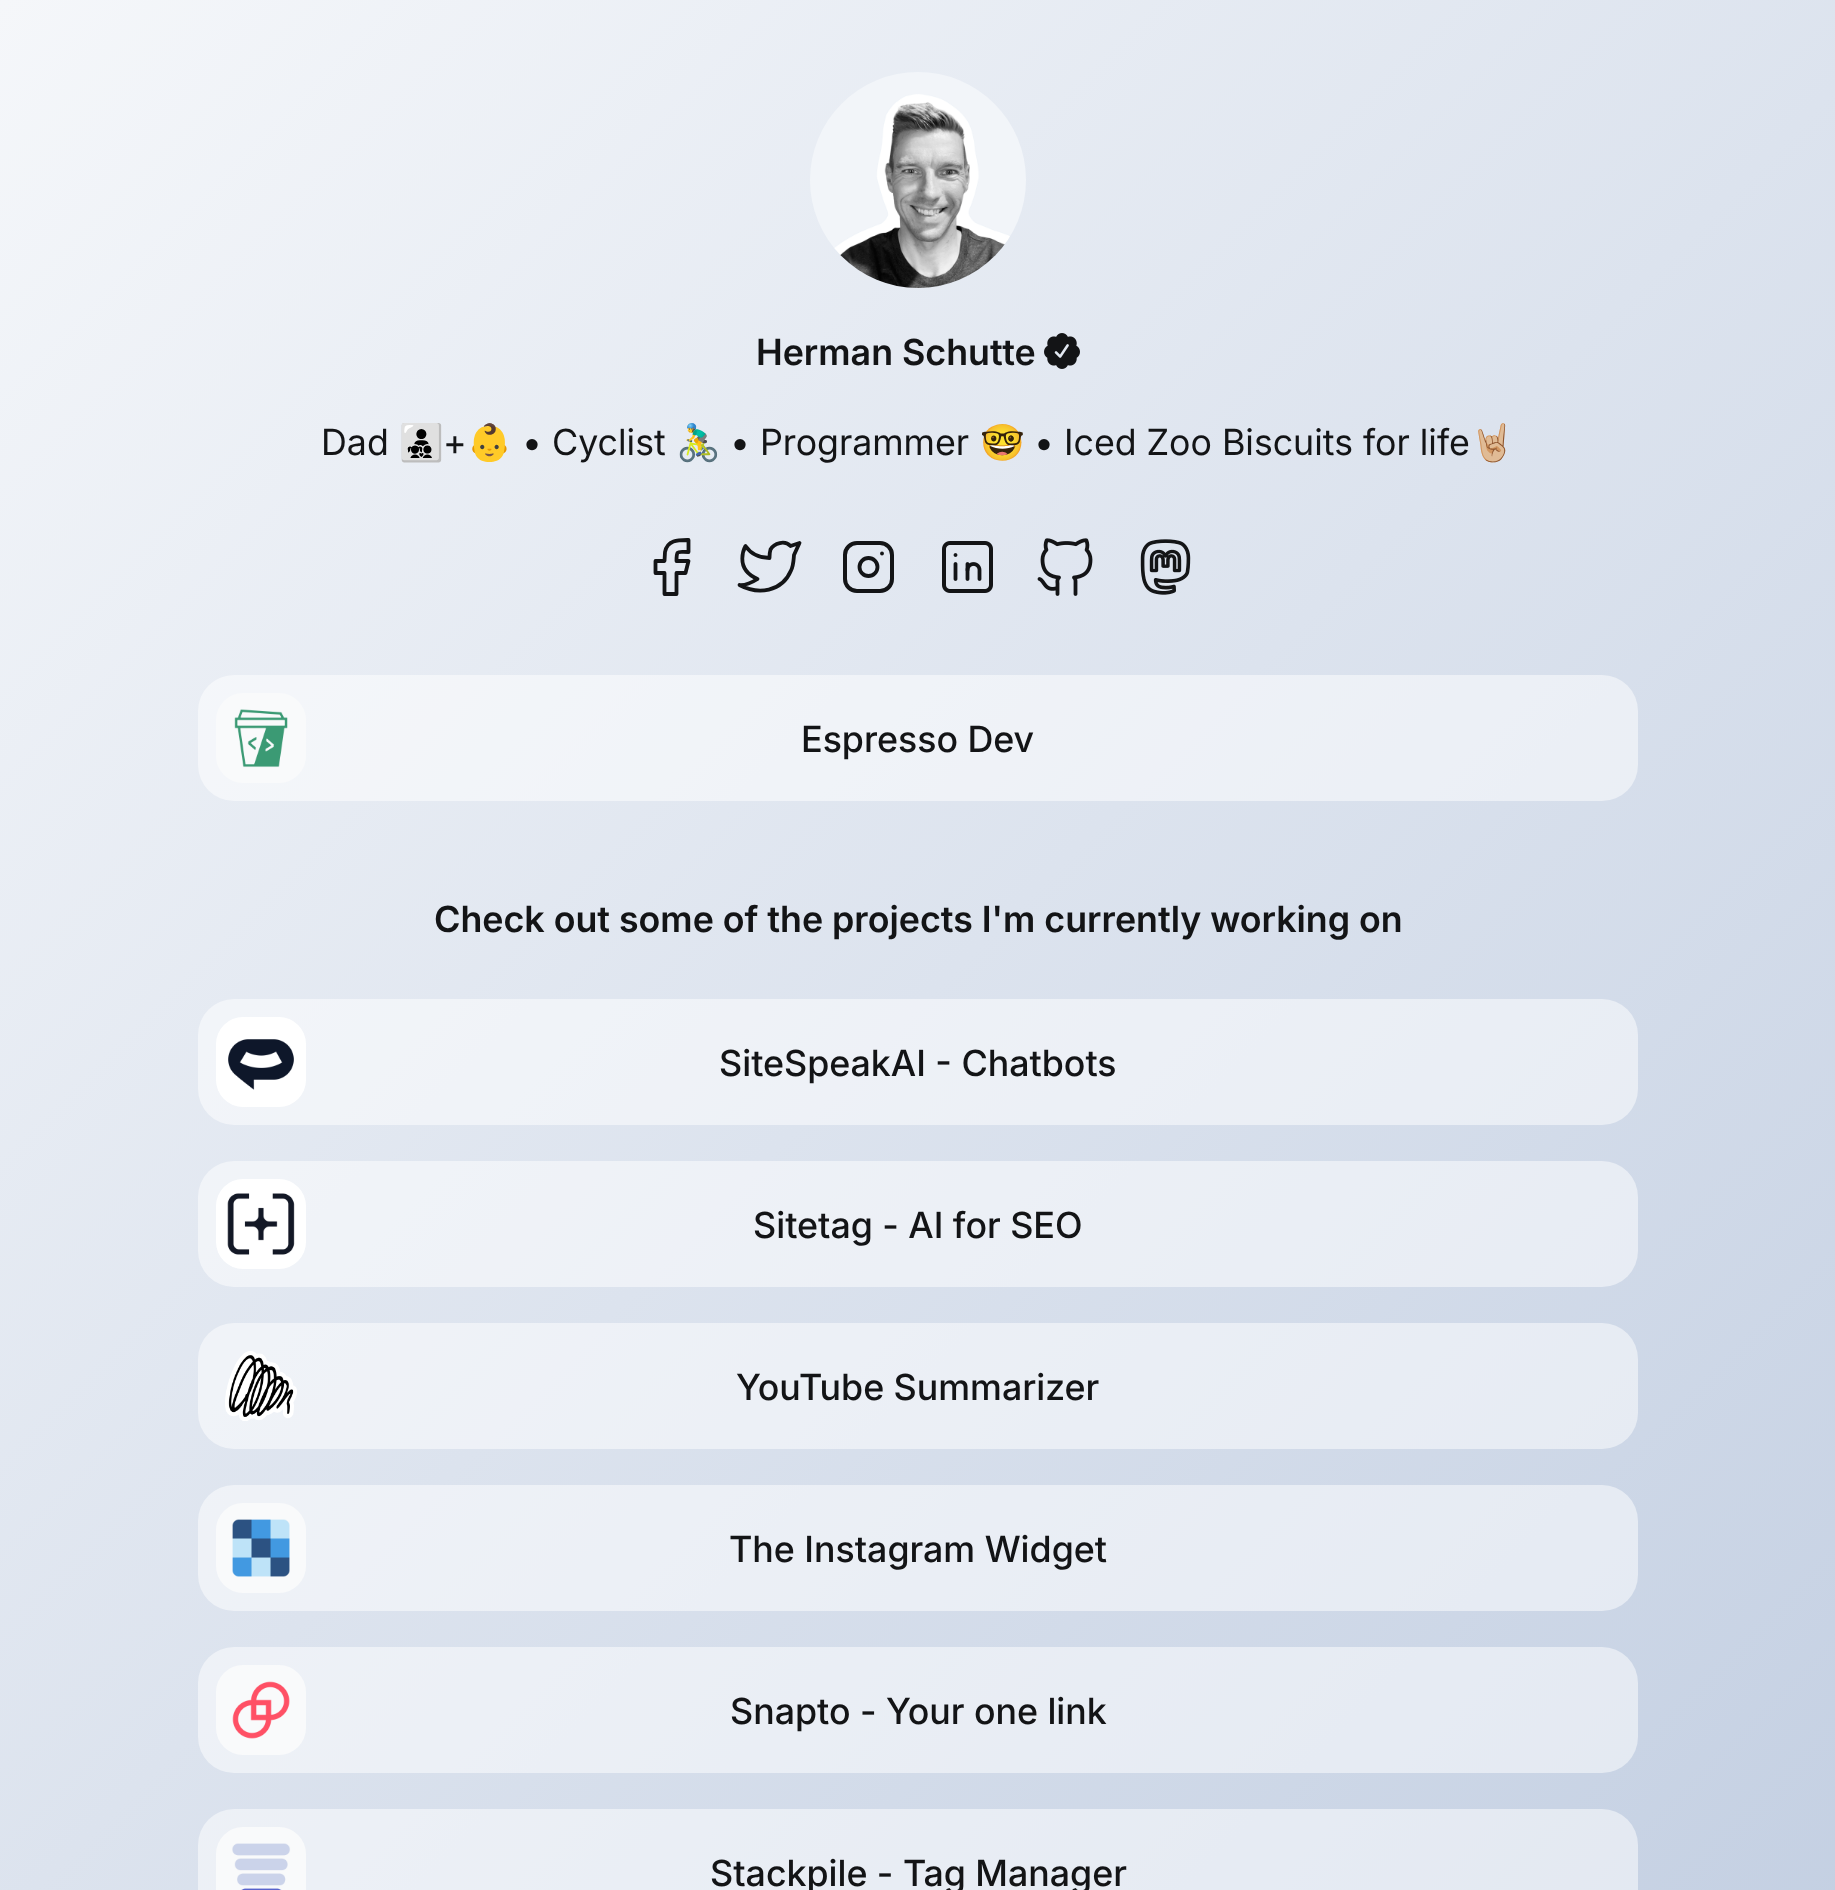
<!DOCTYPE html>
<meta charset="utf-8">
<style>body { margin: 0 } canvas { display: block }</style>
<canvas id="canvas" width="1835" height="1890"></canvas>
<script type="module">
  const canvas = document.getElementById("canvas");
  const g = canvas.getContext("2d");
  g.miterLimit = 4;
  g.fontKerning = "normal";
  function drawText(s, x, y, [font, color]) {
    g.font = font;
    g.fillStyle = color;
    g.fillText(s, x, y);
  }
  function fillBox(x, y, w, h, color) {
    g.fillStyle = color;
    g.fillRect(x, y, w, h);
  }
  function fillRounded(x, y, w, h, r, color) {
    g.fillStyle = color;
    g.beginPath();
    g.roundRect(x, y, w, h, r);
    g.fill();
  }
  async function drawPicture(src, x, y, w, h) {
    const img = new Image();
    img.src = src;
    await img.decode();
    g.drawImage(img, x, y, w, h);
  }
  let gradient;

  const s1 = ["600 36px Inter", "#131416"];
  const s2 = ["36px Inter", "#131416"];
  const s3 = ["36px Noto Color Emoji", "#131416"];
  const s4 = ["500 36px Inter", "#131416"];

  fillBox(0, 0, 1835, 1890, "#FFFFFF");
  gradient = g.createLinearGradient(-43, 43, 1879, 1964);
  gradient.addColorStop(0, "#F5F7FA");
  gradient.addColorStop(1, "#C3CFE2");
  g.fillStyle = gradient;
  g.fillRect(0, 0, 1835, 1890);
  await drawPicture("pic1.png", 810, 72, 216, 216);
  drawText("Herman Schutte", 756, 365, s1);
  await drawPicture("pic2.png", 1044, 333, 36, 36);
  drawText("Dad", 321, 455, s2);
  drawText("👨‍👧‍👦", 399, 455, s3);
  drawText("+", 443, 455, s2);
  drawText("👶", 467, 455, s3);
  drawText("• Cyclist", 522, 455, s2);
  drawText("🚴‍♂️", 676, 455, s3);
  drawText("• Programmer", 730, 455, s2);
  drawText("🤓", 980, 455, s3);
  drawText("• Iced Zoo Biscuits for life", 1034, 455, s2);
  drawText("🤘🏼", 1470, 455, s3);
  g.beginPath();
  g.moveTo(655.5, 561);
  g.lineTo(655.5, 573);
  g.lineTo(664.5, 573);
  g.lineTo(664.5, 594);
  g.lineTo(676.5, 594);
  g.lineTo(676.5, 573);
  g.lineTo(685.5, 573);
  g.lineTo(688.5, 561);
  g.lineTo(676.5, 561);
  g.bezierCurveTo(676.5, 549.5, 677.5, 552, 688.5, 552);
  g.lineTo(688.5, 540);
  g.bezierCurveTo(678.5, 540, 667.5, 539.5, 665, 552);
  g.lineTo(664.5, 561);
  g.lineTo(655.5, 561);
  g.strokeStyle = "#131416";
  g.lineWidth = 3.8;
  g.lineCap = "round";
  g.lineJoin = "round";
  g.stroke();
  g.beginPath();
  g.moveTo(799.5, 543);
  g.lineTo(790.5, 546);
  g.bezierCurveTo(785, 540, 774, 543, 770.5, 549.5);
  g.bezierCurveTo(769.5, 552.5, 769.5, 555, 769.5, 558);
  g.bezierCurveTo(760, 558, 751, 554, 745.5, 546);
  g.bezierCurveTo(745.5, 546, 733, 568.5, 757.5, 579);
  g.bezierCurveTo(752, 582.5, 746.5, 585.5, 739.5, 585);
  g.bezierCurveTo(758, 595, 782, 592, 791, 570.5);
  g.bezierCurveTo(793.5, 565.5, 793.5, 560.5, 794, 555);
  g.closePath();
  g.stroke();
  g.beginPath();
  g.roundRect(845, 543, 47, 48, 12);
  g.lineWidth = 4;
  g.lineJoin = "miter";
  g.stroke();
  g.beginPath();
  g.arc(868.5, 567, 9, 0, Math.PI * 2);
  g.lineWidth = 3.8;
  g.stroke();
  g.beginPath();
  g.moveTo(882, 553.5);
  g.lineTo(882, 553.5);
  g.lineJoin = "round";
  g.stroke();
  await drawPicture("pic3.png", 942, 541, 51, 52);
  await drawPicture("pic4.png", 1037, 538, 56, 58);
  await drawPicture("pic5.png", 1140, 539, 51, 56);
  fillRounded(198, 675, 1440, 126, 36, "rgba(255, 255, 255, 0.5)");
  await drawPicture("pic6.png", 216, 693, 90, 90);
  drawText("Espresso Dev", 801, 752, s4);
  drawText("Check out some of the projects I'm currently working on", 434, 932, s1);
  fillRounded(198, 999, 1440, 126, 36, "rgba(255, 255, 255, 0.5)");
  await drawPicture("pic7.png", 216, 1017, 90, 90);
  drawText("SiteSpeakAI - Chatbots", 719, 1076, s4);
  fillRounded(198, 1161, 1440, 126, 36, "rgba(255, 255, 255, 0.5)");
  await drawPicture("pic8.png", 216, 1179, 90, 90);
  drawText("Sitetag - AI for SEO", 753, 1238, s4);
  fillRounded(198, 1323, 1440, 126, 36, "rgba(255, 255, 255, 0.5)");
  await drawPicture("pic9.png", 225, 1351, 72, 70);
  drawText("YouTube Summarizer", 736, 1400, s4);
  fillRounded(198, 1485, 1440, 126, 36, "rgba(255, 255, 255, 0.5)");
  await drawPicture("pic10.png", 216, 1503, 90, 90);
  drawText("The Instagram Widget", 729, 1562, s4);
  fillRounded(198, 1647, 1440, 126, 36, "rgba(255, 255, 255, 0.5)");
  await drawPicture("pic11.png", 216, 1665, 90, 90);
  drawText("Snapto - Your one link", 730, 1724, s4);
  fillRounded(198, 1809, 1440, 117, 36, "rgba(255, 255, 255, 0.5)");
  await drawPicture("pic12.png", 216, 1827, 90, 63);
  drawText("Stackpile - Tag Manager", 710, 1886, s4);
</script>
